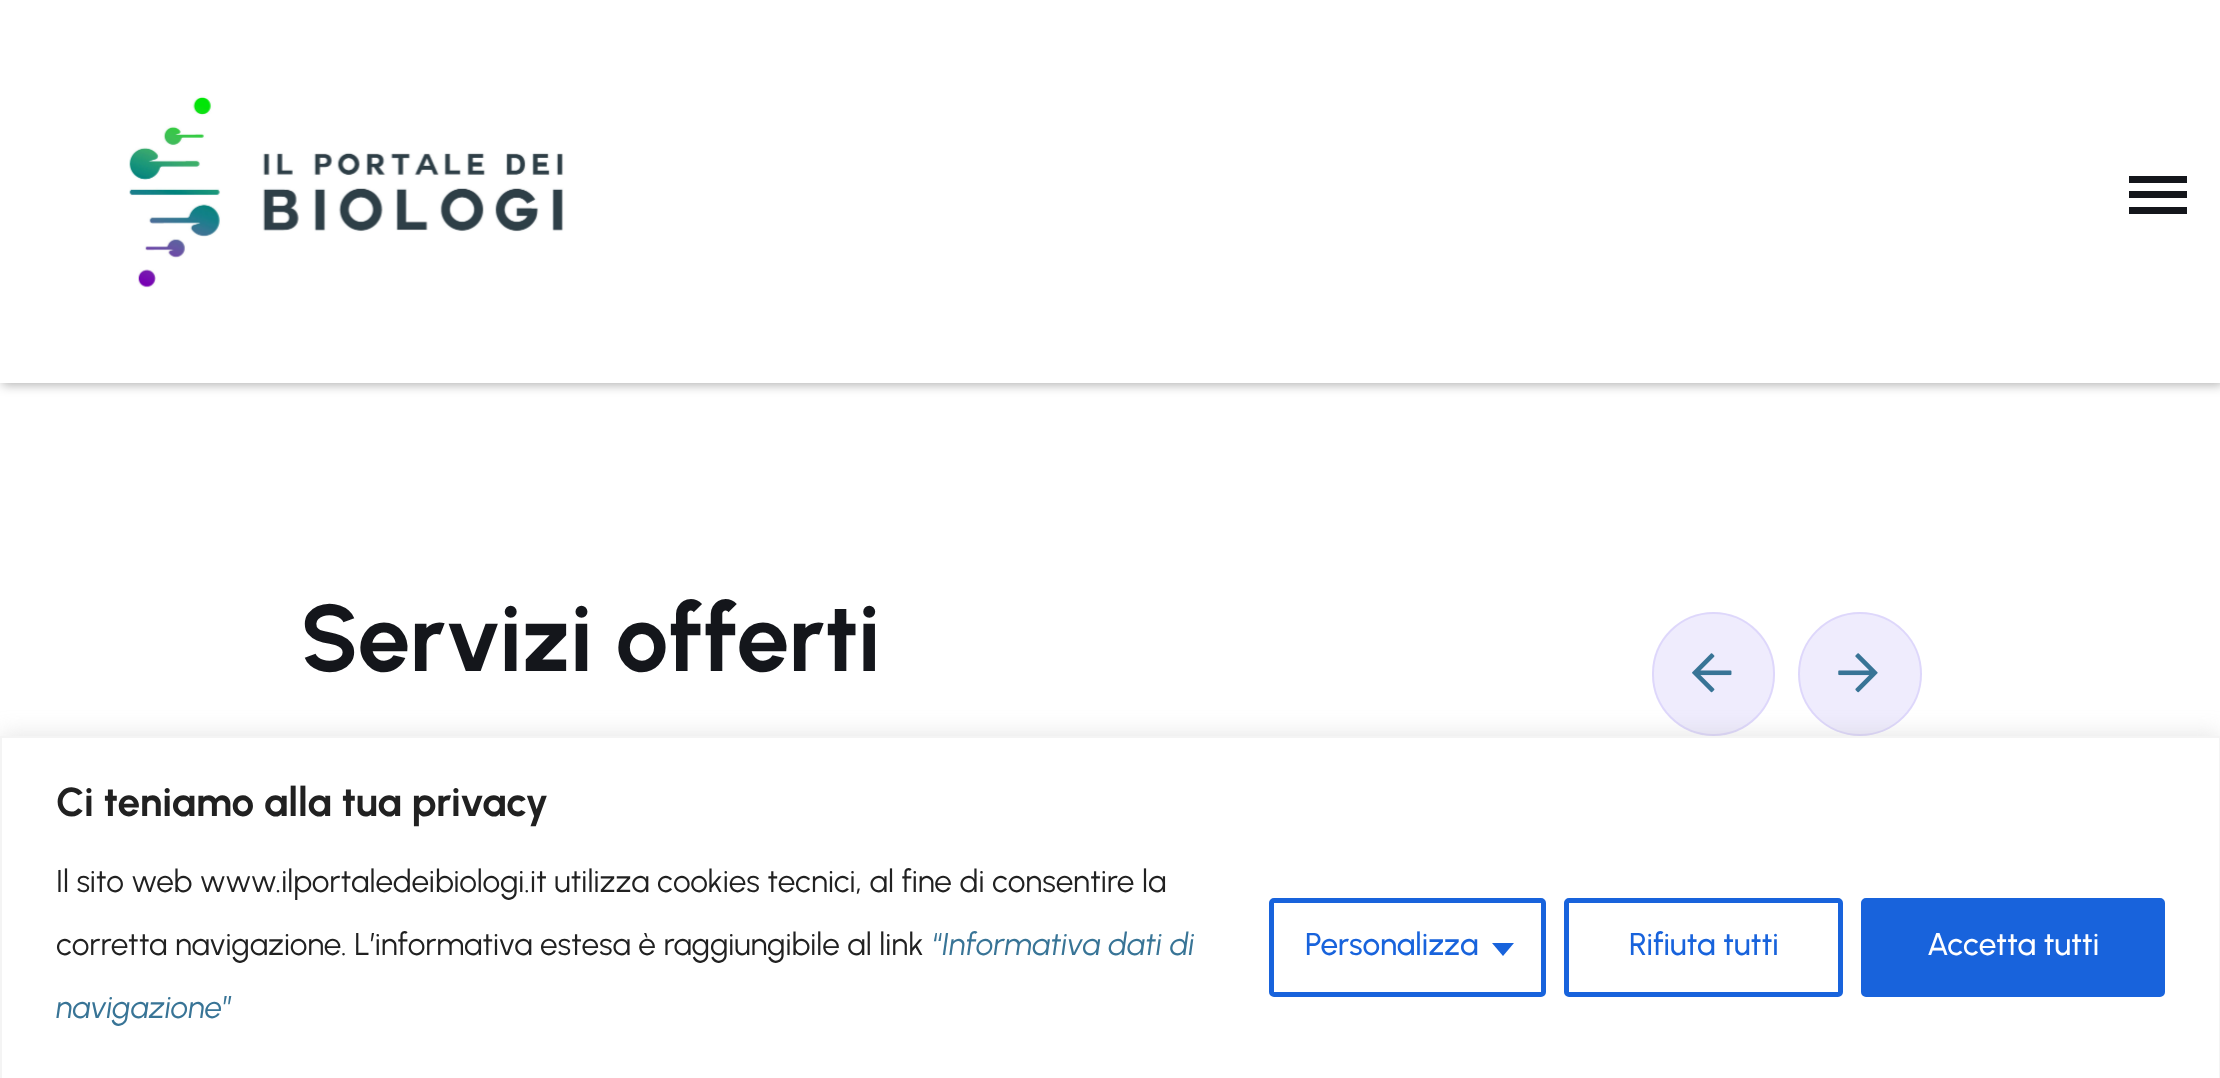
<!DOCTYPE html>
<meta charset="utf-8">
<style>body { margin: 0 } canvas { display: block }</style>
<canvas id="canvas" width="2220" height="1078"></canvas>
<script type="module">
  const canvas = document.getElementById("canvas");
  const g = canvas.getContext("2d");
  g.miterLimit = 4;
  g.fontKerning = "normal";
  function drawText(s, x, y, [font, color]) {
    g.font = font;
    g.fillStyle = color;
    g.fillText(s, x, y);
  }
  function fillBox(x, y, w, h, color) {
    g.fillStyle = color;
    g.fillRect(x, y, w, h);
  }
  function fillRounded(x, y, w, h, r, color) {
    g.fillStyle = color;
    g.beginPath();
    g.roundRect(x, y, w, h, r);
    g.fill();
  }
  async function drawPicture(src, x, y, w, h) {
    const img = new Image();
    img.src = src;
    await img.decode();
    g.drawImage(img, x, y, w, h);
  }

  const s1 = ["bold 94.5px Urbanist", "#14161B"];
  const s2 = ["bold 40.5px Urbanist", "#212121"];
  const s3 = ["31.5px Urbanist", "#212121"];
  const s4 = ["31.5px Urbanist", "#387496"];
  const s5 = ["italic 31.5px Urbanist", "#387496"];
  const s6 = ["500 31.5px Urbanist", "#1863DC"];
  const s7 = ["500 31.5px Urbanist", "#FFFFFF"];

  fillBox(0, 0, 2220, 1078, "#FFFFFF");
  g.fillStyle = "rgba(0, 0, 0, 0.3)";
  g.filter = "blur(5.5px)";
  g.beginPath();
  g.rect(2, 2, 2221, 383);
  g.fill();
  g.filter = "none";
  fillBox(0, 0, 2220, 383, "#FFFFFF");
  await drawPicture("pic1.png", 129, 96, 435, 192);
  fillBox(2129, 176, 58, 7, "#14161B");
  fillBox(2129, 191, 58, 7, "#14161B");
  fillBox(2129, 207, 58, 7, "#14161B");
  drawText("Servizi offerti", 300, 671, s1);
  fillRounded(1652, 612, 123, 124, 61.5, "#EFECFD");
  g.beginPath();
  g.roundRect(1653, 613, 121, 122, 60.5);
  g.strokeStyle = "rgba(99, 69, 237, 0.12)";
  g.lineWidth = 2;
  g.stroke();
  await drawPicture("pic2.png", 1692, 653, 40, 40);
  g.beginPath();
  g.arc(1860, 674, 62, 0, Math.PI * 2);
  g.fill();
  g.beginPath();
  g.arc(1860, 674, 61, 0, Math.PI * 2);
  g.stroke();
  await drawPicture("pic3.png", 1838, 653, 40, 40);
  g.fillStyle = "rgba(172, 171, 171, 0.3)";
  g.filter = "blur(11px)";
  g.beginPath();
  g.rect(0, 734, 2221, 344);
  g.fill();
  g.filter = "none";
  g.fillStyle = "#FFFFFF";
  g.beginPath();
  g.rect(1, 737, 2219, 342);
  g.fill();
  g.strokeStyle = "#F4F4F4";
  g.stroke();
  drawText("Ci teniamo alla tua privacy", 56, 816, s2);
  drawText("Il sito web www.ilportaledeibiologi.it utilizza cookies tecnici, al fine di consentire la", 56, 892, s3);
  drawText("corretta navigazione. L’informativa estesa è raggiungibile al link", 56, 955, s3);
  drawText("“", 932, 955, s4);
  drawText("Informativa dati di", 942, 955, s5);
  drawText("navigazione", 56, 1018, s5);
  drawText("”", 223, 1018, s4);
  g.beginPath();
  g.roundRect(1271.5, 900.5, 272, 94, 2.5);
  g.strokeStyle = "#1863DC";
  g.lineWidth = 5;
  g.stroke();
  drawText("Personalizza", 1305, 955, s6);
  g.beginPath();
  g.moveTo(1492, 943);
  g.lineTo(1514, 943);
  g.lineTo(1503, 956);
  g.closePath();
  g.fill();
  g.beginPath();
  g.roundRect(1566.5, 900.5, 274, 94, 2.5);
  g.stroke();
  drawText("Rifiuta tutti", 1629, 955, s6);
  g.beginPath();
  g.roundRect(1863.5, 900.5, 299, 94, 2.5);
  g.fill();
  g.stroke();
  drawText("Accetta tutti", 1927, 955, s7);
</script>
